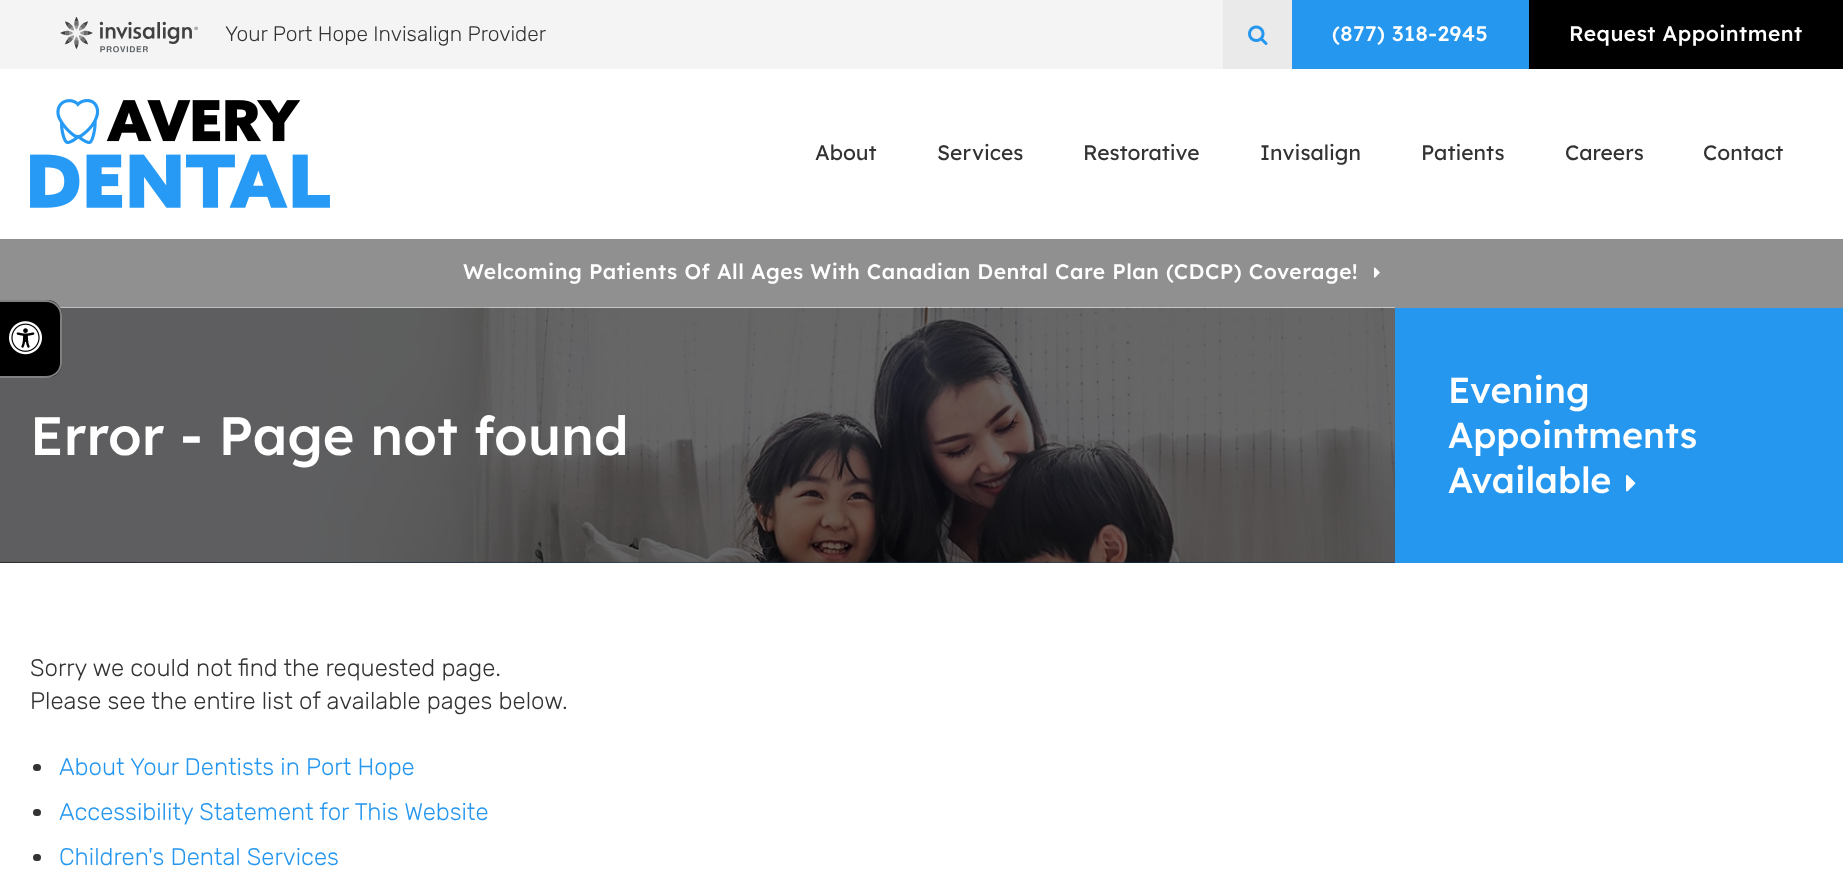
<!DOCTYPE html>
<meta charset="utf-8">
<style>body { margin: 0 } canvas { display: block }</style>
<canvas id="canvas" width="1843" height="879"></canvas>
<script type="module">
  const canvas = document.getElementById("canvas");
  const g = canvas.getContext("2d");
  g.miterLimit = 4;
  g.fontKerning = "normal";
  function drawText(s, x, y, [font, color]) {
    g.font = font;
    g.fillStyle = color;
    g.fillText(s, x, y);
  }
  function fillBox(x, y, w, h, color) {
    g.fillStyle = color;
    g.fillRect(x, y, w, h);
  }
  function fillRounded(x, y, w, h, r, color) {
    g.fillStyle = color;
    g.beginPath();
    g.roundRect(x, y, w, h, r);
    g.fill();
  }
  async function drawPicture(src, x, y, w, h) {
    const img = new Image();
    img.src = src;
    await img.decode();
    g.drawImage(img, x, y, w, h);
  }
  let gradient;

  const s1 = ["300 21px Rubik", "#333333"];
  const s2 = ["500 21px Lexend", "#FFFFFF"];
  const s3 = ["21px Lexend", "#333333"];
  const s4 = ["500 54px Lexend", "#FFFFFF"];
  const s5 = ["500 36px Lexend", "#FFFFFF"];
  const s6 = ["300 24px Rubik", "#333333"];
  const s7 = ["300 24px Rubik", "#2697EF"];

  fillBox(0, 0, 1843, 879, "#FFFFFF");
  fillBox(0, 0, 1223, 69, "#F4F4F4");
  await drawPicture("pic1.png", 60, 17, 138, 36);
  drawText("Your Port Hope Invisalign Provider", 225, 41, s1);
  fillBox(1223, 0, 69, 69, "#EAEAEA");
  await drawPicture("pic2.png", 1248, 25, 20, 20);
  fillBox(1292, 0, 237, 69, "#2697EF");
  g.letterSpacing = "0.48px";
  drawText("(877) 318-2945", 1332, 41, s2);
  fillBox(1529, 0, 314, 69, "#000000");
  drawText("Request Appointment", 1569, 41, s2);
  await drawPicture("pic3.png", 30, 99, 300, 109);
  g.letterSpacing = "0px";
  drawText("About", 815, 160, s3);
  drawText("Services", 937, 160, s3);
  drawText("Restorative", 1083, 160, s3);
  drawText("Invisalign", 1260, 160, s3);
  drawText("Patients", 1421, 160, s3);
  drawText("Careers", 1565, 160, s3);
  drawText("Contact", 1703, 160, s3);
  fillBox(0, 239, 1843, 69, "#909090");
  gradient = g.createLinearGradient(0, 435, 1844, 435);
  gradient.addColorStop(0, "#000000");
  gradient.addColorStop(0.4, "#0F3C60");
  g.fillStyle = gradient;
  g.fillRect(0, 562, 1395, 1);
  await drawPicture("pic6.png", 0, 307, 1395, 256);
  g.fillStyle = "#000000";
  g.beginPath();
  g.roundRect(0, 300, 62, 78, [0, 15, 15, 0]);
  g.fill();
  g.fillStyle = "rgba(255, 255, 255, 0.5)";
  g.beginPath();
  g.moveTo(0, 300);
  g.lineTo(46, 300);
  g.bezierCurveTo(55, 300, 62, 307, 62, 315);
  g.lineTo(62, 363);
  g.bezierCurveTo(62, 371, 55, 378, 46, 378);
  g.lineTo(0, 378);
  g.closePath();
  g.moveTo(0, 302);
  g.lineTo(46, 302);
  g.bezierCurveTo(54, 302, 60, 308, 60, 315);
  g.lineTo(60, 363);
  g.bezierCurveTo(60, 370, 54, 376, 46, 376);
  g.lineTo(0, 376);
  g.closePath();
  g.fill("evenodd");
  await drawPicture("pic4.png", 9, 321, 33, 34);
  g.letterSpacing = "0.48px";
  drawText("Welcoming Patients Of All Ages With Canadian Dental Care Plan (CDCP) Coverage!", 463, 279, s2);
  await drawPicture("pic5.png", 1374, 267, 6, 11);
  gradient = g.createLinearGradient(0, 435, 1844, 435);
  gradient.addColorStop(0, "#000000");
  gradient.addColorStop(0.4, "#2697EF");
  g.fillStyle = gradient;
  g.fillRect(1395, 308, 448, 255);
  g.letterSpacing = "0px";
  drawText("Error - Page not found", 30, 455, s4);
  drawText("Evening", 1448, 403, s5);
  drawText("Appointments", 1448, 448, s5);
  drawText("Available", 1448, 493, s5);
  await drawPicture("pic7.png", 1626, 475, 10, 17);
  drawText("Sorry we could not find the requested page.", 30, 676, s6);
  drawText("Please see the entire list of available pages below.", 30, 709, s6);
  fillRounded(33, 764, 8, 7, 3.5, "#333333");
  drawText("About Your Dentists in Port Hope", 59, 775, s7);
  fillRounded(33, 809, 8, 7, 3.5, "#333333");
  drawText("Accessibility Statement for This Website", 59, 820, s7);
  fillRounded(33, 854, 8, 7, 3.5, "#333333");
  drawText("Children's Dental Services", 59, 865, s7);
</script>
